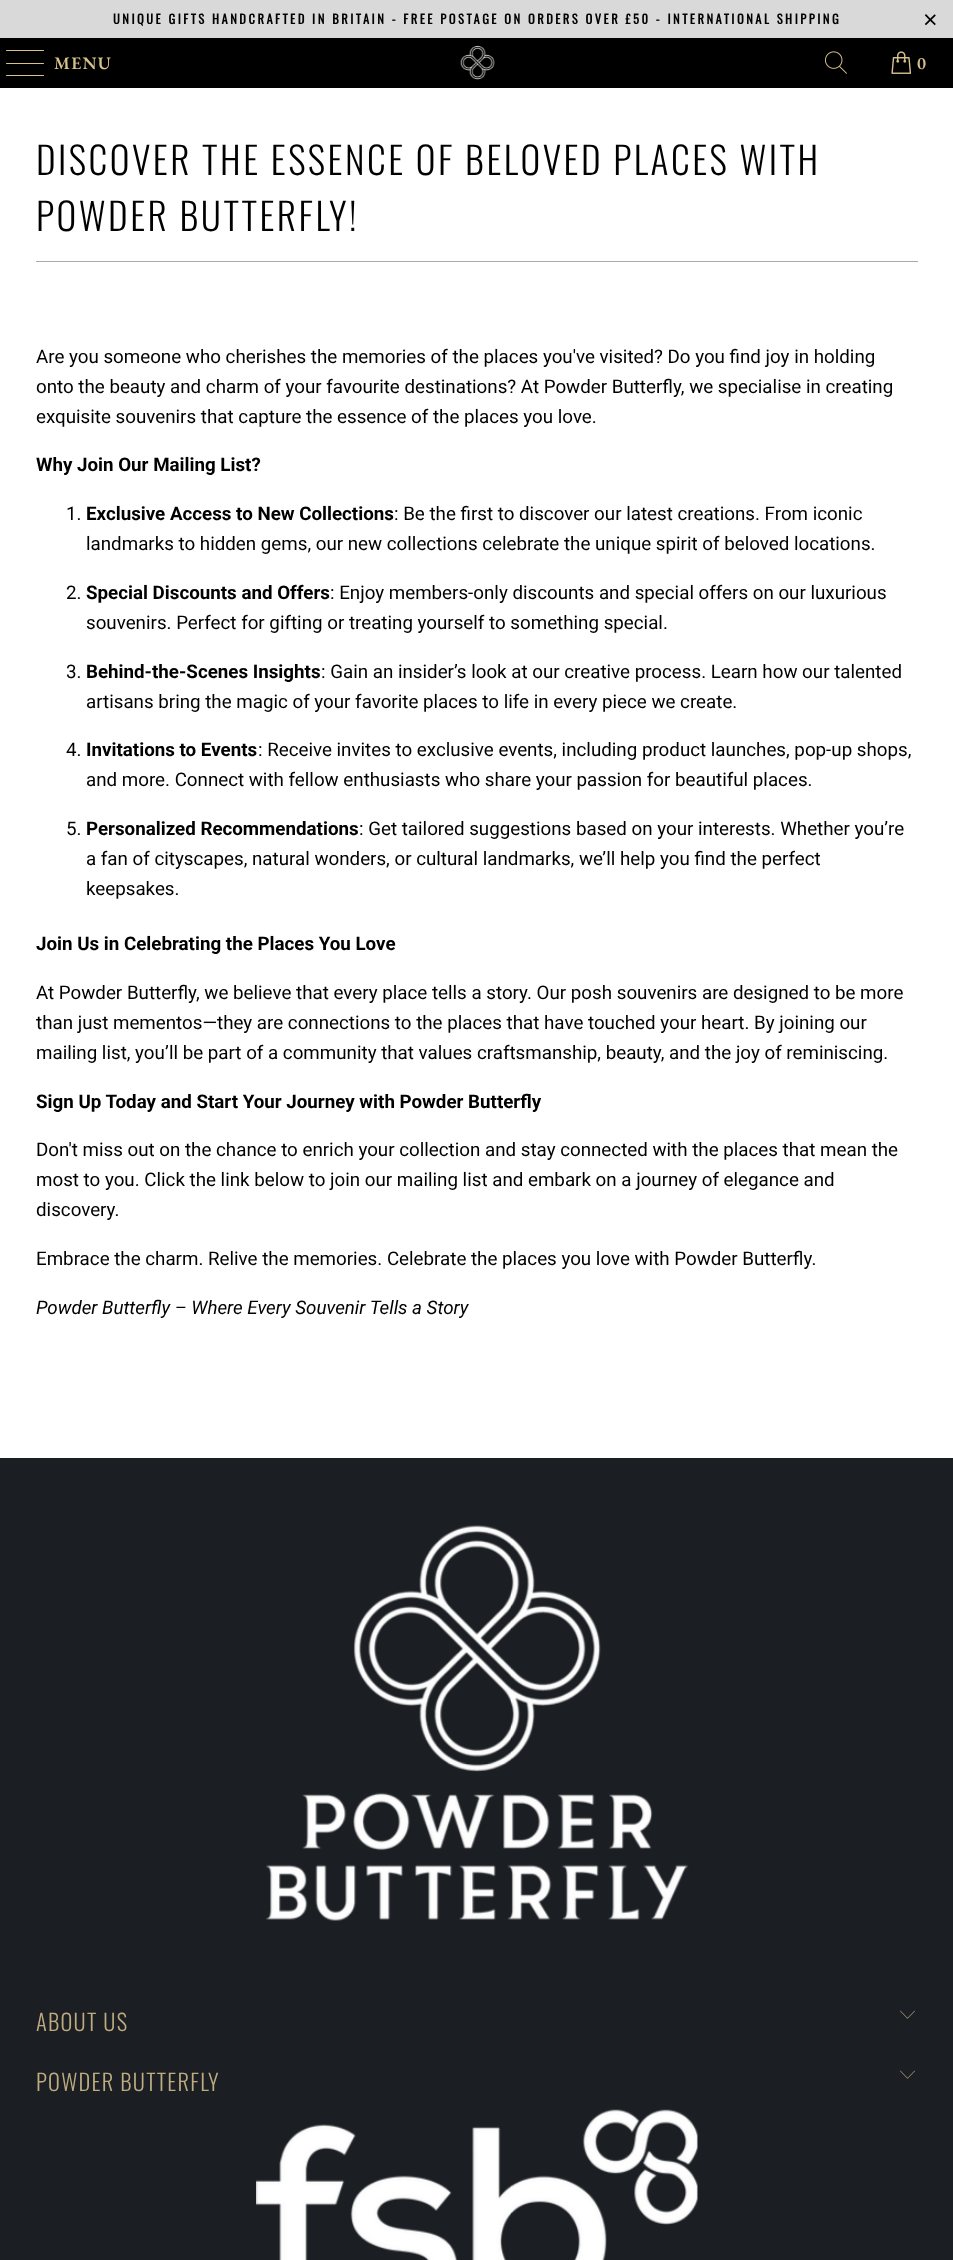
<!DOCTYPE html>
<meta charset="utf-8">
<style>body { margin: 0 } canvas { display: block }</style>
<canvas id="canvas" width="953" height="2260"></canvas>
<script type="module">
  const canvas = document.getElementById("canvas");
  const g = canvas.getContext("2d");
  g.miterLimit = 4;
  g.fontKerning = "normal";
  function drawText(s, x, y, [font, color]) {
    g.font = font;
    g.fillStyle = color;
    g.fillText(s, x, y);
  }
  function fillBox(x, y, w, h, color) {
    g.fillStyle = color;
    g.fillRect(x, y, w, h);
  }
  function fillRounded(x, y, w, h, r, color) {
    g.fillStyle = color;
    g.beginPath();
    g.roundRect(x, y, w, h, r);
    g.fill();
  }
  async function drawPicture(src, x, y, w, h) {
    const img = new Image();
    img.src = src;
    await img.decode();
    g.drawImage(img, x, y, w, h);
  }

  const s1 = ["bold 12.5px Oswald", "#000000"];
  const s2 = ["25px Liberation Sans", "#000000"];
  const s3 = ["600 17.5px EB Garamond", "#D7C28C"];
  const s4 = ["300 37.5px Oswald", "#000000"];
  const s5 = ["18.75px Roboto", "#000000"];
  const s6 = ["bold 18.75px Roboto", "#000000"];
  const s7 = ["italic 18.75px Roboto", "#000000"];
  const s8 = ["300 22.5px Oswald", "#BEAC80"];

  fillBox(0, 0, 953, 2260, "#FFFFFF");
  fillBox(0, 0, 953, 38, "#D9D9D9");
  g.letterSpacing = "2.5px";
  drawText("UNIQUE GIFTS HANDCRAFTED IN BRITAIN - FREE POSTAGE ON ORDERS OVER £50 - INTERNATIONAL SHIPPING", 113, 24, s1);
  drawText("×", 923, 28, s2);
  fillBox(0, 38, 953, 50, "#000000");
  fillRounded(6, 50, 38, 1, 0.5, "#D7C28C");
  fillRounded(6, 63, 38, 1, 0.5, "#D7C28C");
  fillRounded(6, 75, 38, 1, 0.5, "#D7C28C");
  g.letterSpacing = "1.25px";
  drawText("MENU", 54, 69, s3);
  await drawPicture("pic1.png", 460, 45, 35, 35);
  await drawPicture("pic2.png", 825, 51, 22, 23);
  await drawPicture("pic3.png", 891, 51, 21, 23);
  drawText("0", 917, 69, s3);
  g.letterSpacing = "2.5px";
  drawText("DISCOVER THE ESSENCE OF BELOVED PLACES WITH", 36, 175, s4);
  drawText("POWDER BUTTERFLY!", 36, 231, s4);
  fillBox(36, 261, 882, 1, "#AAAAAA");
  g.letterSpacing = "0px";
  drawText("Are you someone who cherishes the memories of the places you've visited? Do you find joy in holding", 36, 363, s5);
  drawText("onto the beauty and charm of your favourite destinations? At Powder Butterfly, we specialise in creating", 36, 393, s5);
  drawText("exquisite souvenirs that capture the essence of the places you love.", 36, 423, s5);
  drawText("Why Join Our Mailing List?", 36, 471, s6);
  drawText("1.", 66, 520, s5);
  drawText("Exclusive Access to New Collections", 86, 520, s6);
  drawText(": Be the first to discover our latest creations. From iconic", 394, 520, s5);
  drawText("landmarks to hidden gems, our new collections celebrate the unique spirit of beloved locations.", 86, 550, s5);
  drawText("2.", 66, 599, s5);
  drawText("Special Discounts and Offers", 86, 599, s6);
  drawText(": Enjoy members-only discounts and special offers on our luxurious", 330, 599, s5);
  drawText("souvenirs. Perfect for gifting or treating yourself to something special.", 86, 629, s5);
  drawText("3.", 66, 678, s5);
  drawText("Behind-the-Scenes Insights", 86, 678, s6);
  drawText(": Gain an insider’s look at our creative process. Learn how our talented", 321, 678, s5);
  drawText("artisans bring the magic of your favorite places to life in every piece we create.", 86, 708, s5);
  drawText("4.", 66, 756, s5);
  drawText("Invitations to Events", 86, 756, s6);
  drawText(": Receive invites to exclusive events, including product launches, pop-up shops,", 258, 756, s5);
  drawText("and more. Connect with fellow enthusiasts who share your passion for beautiful places.", 86, 786, s5);
  drawText("5.", 66, 835, s5);
  drawText("Personalized Recommendations", 86, 835, s6);
  drawText(": Get tailored suggestions based on your interests. Whether you’re", 359, 835, s5);
  drawText("a fan of cityscapes, natural wonders, or cultural landmarks, we’ll help you find the perfect", 86, 865, s5);
  drawText("keepsakes.", 86, 895, s5);
  drawText("Join Us in Celebrating the Places You Love", 36, 950, s6);
  drawText("At Powder Butterfly, we believe that every place tells a story. Our posh souvenirs are designed to be more", 36, 999, s5);
  drawText("than just mementos—they are connections to the places that have touched your heart. By joining our", 36, 1029, s5);
  drawText("mailing list, you’ll be part of a community that values craftsmanship, beauty, and the joy of reminiscing.", 36, 1059, s5);
  drawText("Sign Up Today and Start Your Journey with Powder Butterfly", 36, 1108, s6);
  drawText("Don't miss out on the chance to enrich your collection and stay connected with the places that mean the", 36, 1156, s5);
  drawText("most to you. Click the link below to join our mailing list and embark on a journey of elegance and", 36, 1186, s5);
  drawText("discovery.", 36, 1216, s5);
  drawText("Embrace the charm. Relive the memories. Celebrate the places you love with Powder Butterfly.", 36, 1265, s5);
  drawText("Powder Butterfly – Where Every Souvenir Tells a Story", 36, 1314, s7);
  fillBox(0, 1458, 953, 802, "#1B1F23");
  await drawPicture("pic4.png", 266, 1525, 423, 396);
  g.letterSpacing = "1.25px";
  drawText("ABOUT US", 36, 2031, s8);
  await drawPicture("pic5.png", 900, 2010, 15, 9);
  drawText("POWDER BUTTERFLY", 36, 2091, s8);
  await drawPicture("pic5.png", 900, 2070, 15, 9);
  await drawPicture("pic6.png", 256, 2109, 442, 151);
</script>
